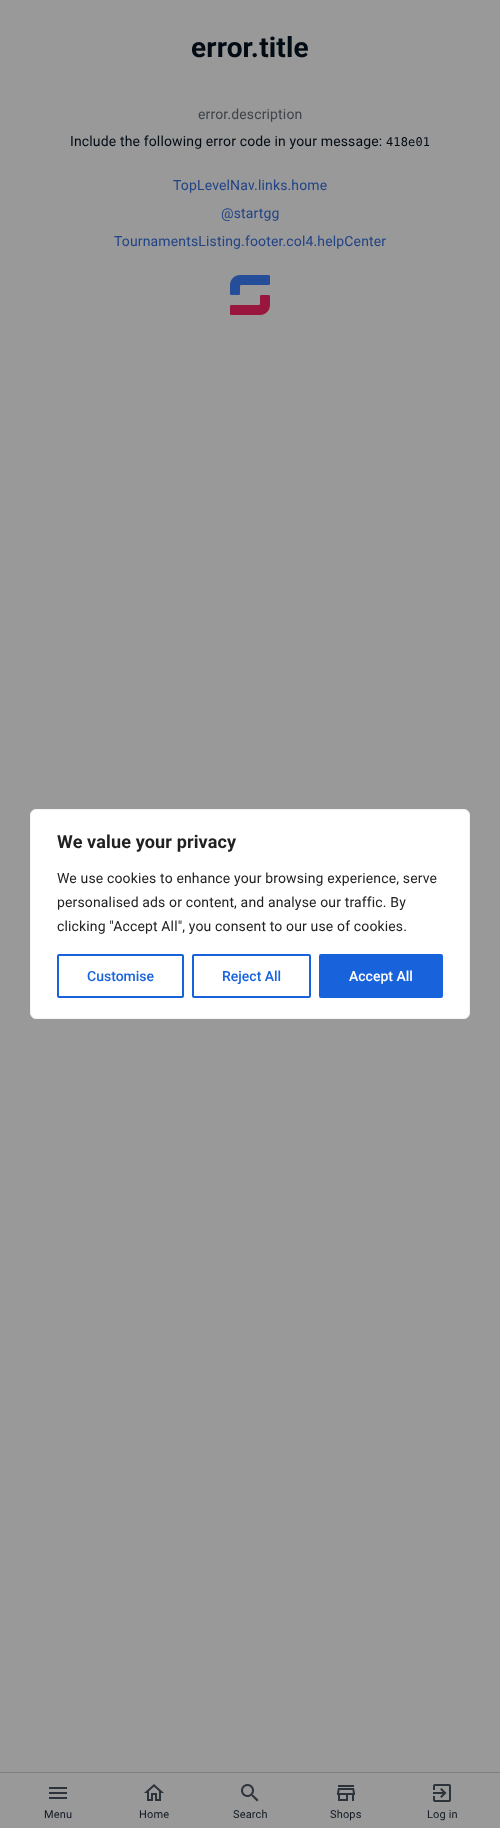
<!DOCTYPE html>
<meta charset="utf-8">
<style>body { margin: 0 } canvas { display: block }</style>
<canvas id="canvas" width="500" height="1828"></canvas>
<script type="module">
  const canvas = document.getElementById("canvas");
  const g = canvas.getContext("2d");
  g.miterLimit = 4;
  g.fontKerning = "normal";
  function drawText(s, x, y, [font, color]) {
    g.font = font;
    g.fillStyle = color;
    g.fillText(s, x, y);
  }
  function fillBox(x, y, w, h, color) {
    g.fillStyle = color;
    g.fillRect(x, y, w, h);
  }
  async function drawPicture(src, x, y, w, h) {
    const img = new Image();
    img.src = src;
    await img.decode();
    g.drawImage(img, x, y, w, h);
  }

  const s1 = ["bold 28px Roboto", "#020B14"];
  const s2 = ["14px Roboto", "#3E4449"];
  const s3 = ["14px Roboto", "#020B14"];
  const s4 = ["12px DejaVu Sans Mono", "#020B14"];
  const s5 = ["14px Roboto", "#224386"];
  const s6 = ["11px Roboto", "#121923"];
  const s7 = ["bold 18px Roboto", "#212121"];
  const s8 = ["14px Roboto", "#212121"];
  const s9 = ["500 14px Roboto", "#1863DC"];
  const s10 = ["500 14px Roboto", "#FFFFFF"];

  fillBox(0, 0, 500, 1828, "#999999");
  g.letterSpacing = "0.15px";
  drawText("error.title", 191, 57, s1);
  drawText("error.description", 198, 119, s2);
  drawText("Include the following error code in your message:", 70, 146, s3);
  drawText("418e01", 386, 146, s4);
  drawText("TopLevelNav.links.home", 173, 190, s5);
  drawText("@startgg", 221, 218, s5);
  drawText("TournamentsListing.footer.col4.helpCenter", 114, 246, s5);
  await drawPicture("pic1.png", 230, 275, 40, 40);
  fillBox(0, 1772, 500, 1, "#7D8083");
  await drawPicture("pic2.png", 49, 1787, 18, 12);
  drawText("Menu", 44, 1818, s6);
  await drawPicture("pic3.png", 144, 1784, 20, 17);
  drawText("Home", 139, 1818, s6);
  await drawPicture("pic4.png", 241, 1784, 18, 18);
  drawText("Search", 233, 1818, s6);
  await drawPicture("pic5.png", 337, 1785, 18, 16);
  drawText("Shops", 330, 1818, s6);
  await drawPicture("pic6.png", 433, 1784, 18, 18);
  drawText("Log in", 427, 1818, s6);
  g.fillStyle = "#FFFFFF";
  g.beginPath();
  g.roundRect(30.5, 809.5, 439, 209, 5.5);
  g.fill();
  g.strokeStyle = "#F4F4F4";
  g.stroke();
  drawText("We value your privacy", 57, 848, s7);
  drawText("We use cookies to enhance your browsing experience, serve", 57, 883, s8);
  drawText("personalised ads or content, and analyse our traffic. By", 57, 907, s8);
  drawText("clicking \"Accept All\", you consent to our use of cookies.", 57, 931, s8);
  g.beginPath();
  g.roundRect(58, 955, 125, 42, 1);
  g.strokeStyle = "#1863DC";
  g.lineWidth = 2;
  g.stroke();
  g.letterSpacing = "0px";
  drawText("Customise", 87, 981, s9);
  g.beginPath();
  g.roundRect(193, 955, 117, 42, 1);
  g.stroke();
  drawText("Reject All", 222, 981, s9);
  g.beginPath();
  g.roundRect(320, 955, 122, 42, 1);
  g.fill();
  g.stroke();
  drawText("Accept All", 349, 981, s10);
</script>
